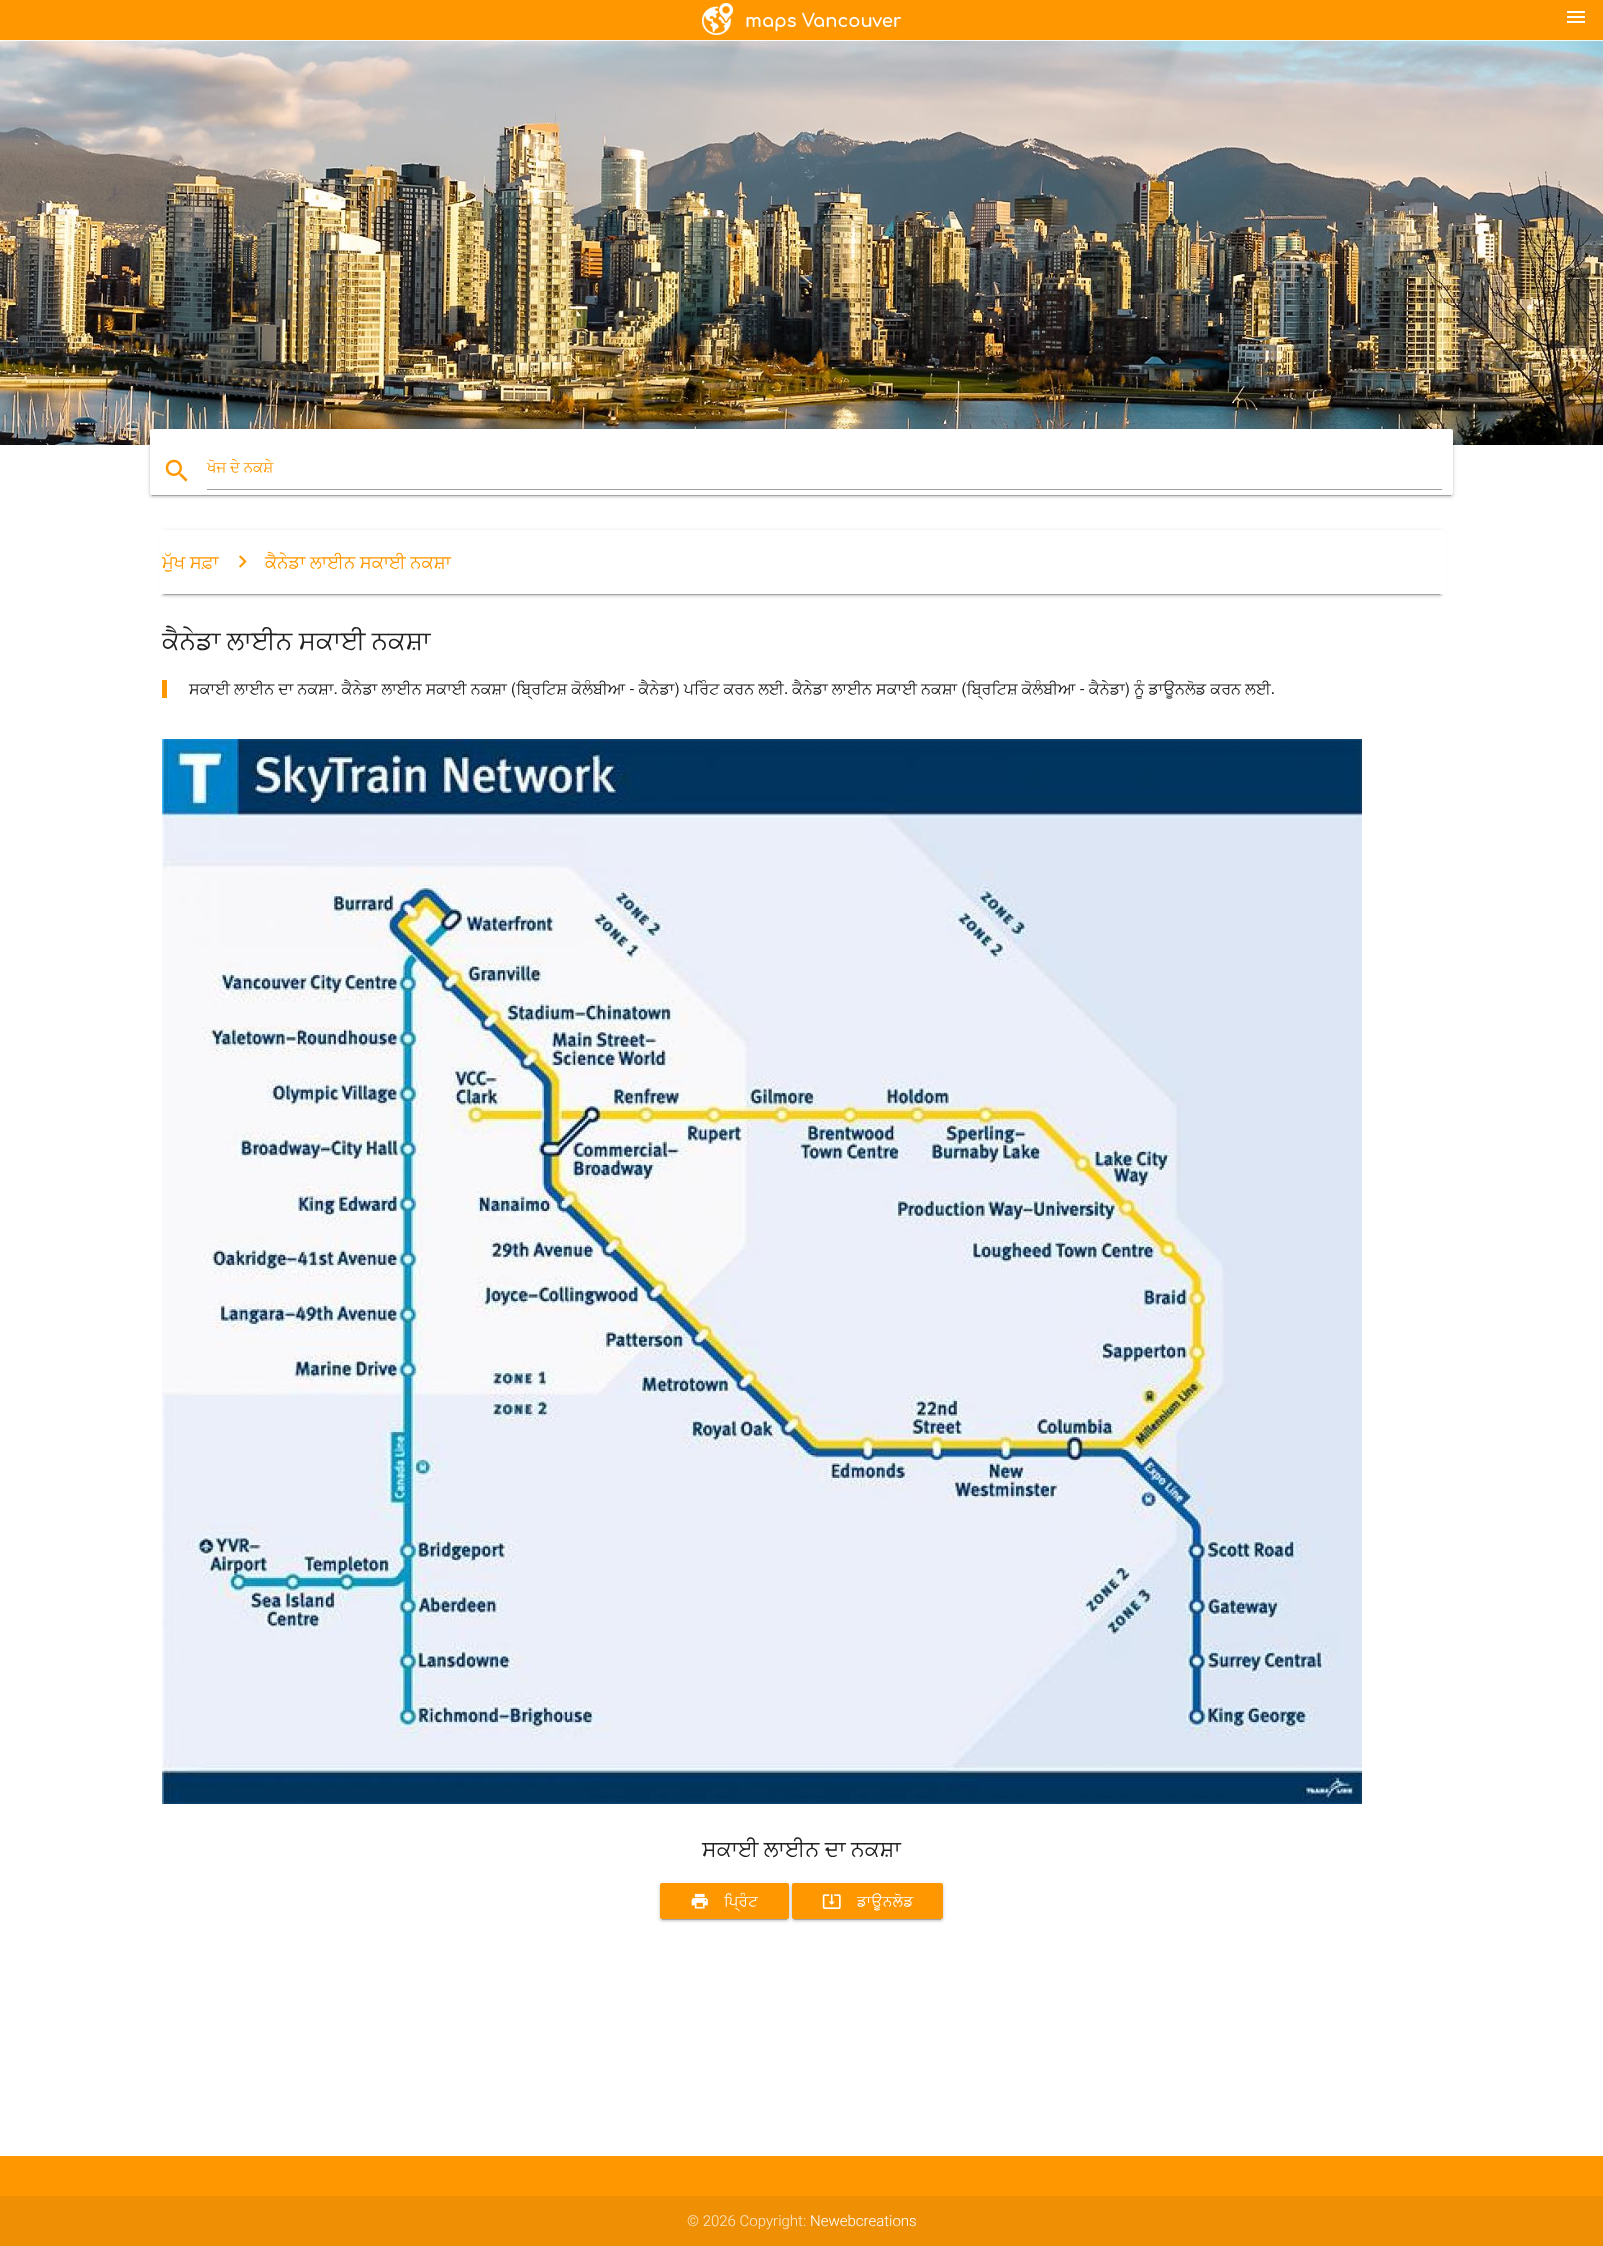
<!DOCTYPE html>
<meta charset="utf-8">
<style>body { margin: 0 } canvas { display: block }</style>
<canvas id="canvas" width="1603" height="2246"></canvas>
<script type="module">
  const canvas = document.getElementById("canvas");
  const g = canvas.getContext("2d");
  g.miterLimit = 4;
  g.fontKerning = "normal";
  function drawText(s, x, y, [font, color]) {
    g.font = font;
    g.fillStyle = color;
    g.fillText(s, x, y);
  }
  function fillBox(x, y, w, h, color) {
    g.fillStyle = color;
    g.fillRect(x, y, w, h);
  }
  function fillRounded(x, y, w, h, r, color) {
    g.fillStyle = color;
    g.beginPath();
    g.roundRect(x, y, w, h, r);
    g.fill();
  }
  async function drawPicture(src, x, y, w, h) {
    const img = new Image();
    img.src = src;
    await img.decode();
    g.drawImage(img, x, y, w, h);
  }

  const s1 = ["15px FreeSans", "#FF9800"];
  const s2 = ["18px FreeSans", "#FF9800"];
  const s3 = ["26px FreeSans", "#212121"];
  const s4 = ["16px FreeSans", "#212121"];
  const s5 = ["22px FreeSans", "#212121"];
  const s6 = ["15px FreeSans", "#FFFFFF"];
  const s7 = ["300 15px Roboto", "#FCE9CD"];
  const s8 = ["300 15px Roboto", "#FFFFFF"];

  fillBox(0, 0, 1603, 2246, "#FFFFFF");
  fillBox(0, 0, 1603, 40, "#FF9800");
  await drawPicture("pic1.png", 702, 3, 200, 32);
  await drawPicture("pic2.png", 1567, 11, 18, 12);
  await drawPicture("pic3.png", 0, 40, 1603, 405);
  g.fillStyle = "rgba(0, 0, 0, 0.2)";
  g.filter = "blur(0.5px)";
  g.beginPath();
  g.rect(152, 434, 1299, 62);
  g.fill();
  g.filter = "none";
  g.fillStyle = "rgba(0, 0, 0, 0.12)";
  g.filter = "blur(2.5px)";
  g.beginPath();
  g.roundRect(150, 430, 1303, 66, 2);
  g.fill();
  g.filter = "none";
  g.fillStyle = "rgba(0, 0, 0, 0.14)";
  g.filter = "blur(1px)";
  g.beginPath();
  g.roundRect(150, 431, 1303, 66, 2);
  g.fill();
  g.filter = "none";
  fillRounded(150, 429, 1303, 66, 2, "#FFFFFF");
  await drawPicture("pic4.png", 165, 459, 23, 23);
  drawText("ਖੋਜ ਦੇ ਨਕਸ਼ੇ", 207, 472, s1);
  fillBox(207, 489, 1235, 1, "#9E9E9E");
  g.fillStyle = "rgba(0, 0, 0, 0.2)";
  g.filter = "blur(0.5px)";
  g.beginPath();
  g.rect(164, 535, 1276, 60);
  g.fill();
  g.filter = "none";
  g.fillStyle = "rgba(0, 0, 0, 0.12)";
  g.filter = "blur(2.5px)";
  g.beginPath();
  g.rect(162, 531, 1280, 64);
  g.fill();
  g.filter = "none";
  g.fillStyle = "rgba(0, 0, 0, 0.14)";
  g.filter = "blur(1px)";
  g.beginPath();
  g.rect(162, 532, 1280, 64);
  g.fill();
  g.filter = "none";
  fillBox(159, 530, 1286, 64, "#FFFFFF");
  drawText("ਮੁੱਖ ਸਫ਼ਾ", 162, 568, s2);
  await drawPicture("pic5.png", 239, 555, 8, 13);
  drawText("ਕੈਨੇਡਾ ਲਾਈਨ ਸਕਾਈ ਨਕਸ਼ਾ", 265, 568, s2);
  drawText("ਕੈਨੇਡਾ ਲਾਈਨ ਸਕਾਈ ਨਕਸ਼ਾ", 162, 649, s3);
  fillBox(162, 680, 5, 18, "#FF9800");
  drawText("ਸਕਾਈ ਲਾਈਨ ਦਾ ਨਕਸ਼ਾ. ਕੈਨੇਡਾ ਲਾਈਨ ਸਕਾਈ ਨਕਸ਼ਾ (ਬ੍ਰਿਟਿਸ਼ ਕੋਲੰਬੀਆ - ਕੈਨੇਡਾ) ਪਰਿੰਟ ਕਰਨ ਲਈ. ਕੈਨੇਡਾ ਲਾਈਨ ਸਕਾਈ ਨਕਸ਼ਾ (ਬ੍ਰਿਟਿਸ਼ ਕੋਲੰਬੀਆ - ਕੈਨੇਡਾ) ਨੂੰ ਡਾਊਨਲੋਡ ਕਰਨ ਲਈ.", 189, 694, s4);
  await drawPicture("pic6.png", 162, 739, 1200, 1065);
  drawText("ਸਕਾਈ ਲਾਈਨ ਦਾ ਨਕਸ਼ਾ", 702, 1856, s5);
  g.fillStyle = "rgba(0, 0, 0, 0.2)";
  g.filter = "blur(0.5px)";
  g.beginPath();
  g.rect(662, 1888, 125, 32);
  g.fill();
  g.filter = "none";
  g.fillStyle = "rgba(0, 0, 0, 0.12)";
  g.filter = "blur(2.5px)";
  g.beginPath();
  g.roundRect(660, 1884, 129, 36, 2);
  g.fill();
  g.filter = "none";
  g.fillStyle = "rgba(0, 0, 0, 0.14)";
  g.filter = "blur(1px)";
  g.beginPath();
  g.roundRect(660, 1885, 129, 36, 2);
  g.fill();
  g.filter = "none";
  fillRounded(660, 1883, 129, 36, 2, "#FF9800");
  await drawPicture("pic7.png", 691, 1893, 17, 16);
  g.letterSpacing = "0.5px";
  drawText("ਪ੍ਰਿੰਟ", 724, 1906, s6);
  g.fillStyle = "rgba(0, 0, 0, 0.2)";
  g.filter = "blur(0.5px)";
  g.beginPath();
  g.rect(794, 1888, 147, 32);
  g.fill();
  g.filter = "none";
  g.fillStyle = "rgba(0, 0, 0, 0.12)";
  g.filter = "blur(2.5px)";
  g.beginPath();
  g.roundRect(792, 1884, 151, 36, 2);
  g.fill();
  g.filter = "none";
  g.fillStyle = "rgba(0, 0, 0, 0.14)";
  g.filter = "blur(1px)";
  g.beginPath();
  g.roundRect(792, 1885, 151, 36, 2);
  g.fill();
  g.filter = "none";
  fillRounded(792, 1883, 151, 36, 2, "#FF9800");
  await drawPicture("pic8.png", 822, 1894, 19, 15);
  drawText("ਡਾਊਨਲੋਡ", 857, 1906, s6);
  fillBox(0, 2156, 1603, 40, "#FF9800");
  fillBox(0, 2196, 1603, 50, "#EF9004");
  g.letterSpacing = "0px";
  drawText("© 2026 Copyright:", 687, 2226, s7);
  drawText("Newebcreations", 810, 2226, s8);
</script>
